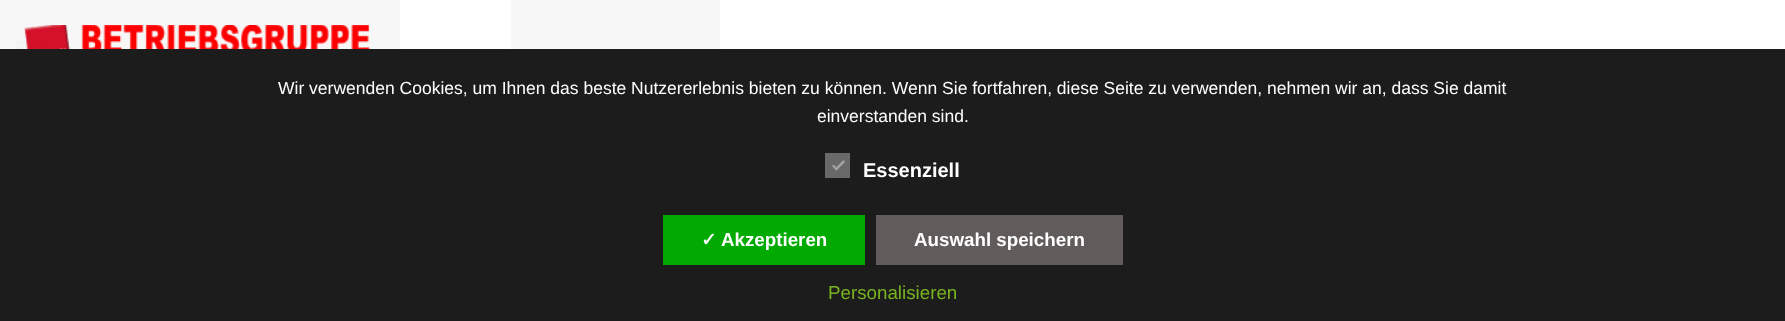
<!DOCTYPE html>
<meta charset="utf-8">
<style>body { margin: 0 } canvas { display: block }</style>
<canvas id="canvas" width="1785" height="321"></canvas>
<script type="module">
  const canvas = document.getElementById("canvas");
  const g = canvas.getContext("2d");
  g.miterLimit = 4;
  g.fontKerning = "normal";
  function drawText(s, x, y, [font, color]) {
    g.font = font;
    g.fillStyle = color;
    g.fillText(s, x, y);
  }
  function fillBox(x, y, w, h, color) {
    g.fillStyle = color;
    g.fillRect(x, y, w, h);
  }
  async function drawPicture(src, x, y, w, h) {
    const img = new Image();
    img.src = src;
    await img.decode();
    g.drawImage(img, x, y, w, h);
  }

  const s1 = ["17.5px Liberation Sans", "#FFFFFF"];
  const s2 = ["bold 20px Liberation Sans", "#FFFFFF"];
  const s3 = ["bold 18.75px DejaVu Sans", "#FFFFFF"];
  const s4 = ["bold 18.75px Liberation Sans", "#FFFFFF"];
  const s5 = ["18.75px Liberation Sans", "#79B51F"];

  fillBox(0, 0, 1785, 321, "#FFFFFF");
  fillBox(0, 0, 400, 49, "#F7F7F7");
  await drawPicture("pic1.png", 16, 25, 355, 24);
  fillBox(511, 0, 209, 49, "#F7F7F7");
  fillBox(0, 49, 1785, 272, "#1D1C1C");
  drawText("Wir verwenden Cookies, um Ihnen das beste Nutzererlebnis bieten zu können. Wenn Sie fortfahren, diese Seite zu verwenden, nehmen wir an, dass Sie damit", 278, 94, s1);
  drawText("einverstanden sind.", 817, 122, s1);
  fillBox(825, 153, 25, 25, "#696969");
  g.fillStyle = "#A5A4A4";
  g.beginPath();
  g.moveTo(843.5, 160);
  g.lineTo(845, 162);
  g.lineTo(836.5, 170.5);
  g.lineTo(834.5, 169);
  g.closePath();
  g.fill();
  g.beginPath();
  g.moveTo(833.5, 164.5);
  g.lineTo(838, 169);
  g.lineTo(836.5, 170.5);
  g.lineTo(832, 166);
  g.closePath();
  g.fill();
  drawText("Essenziell", 863, 177, s2);
  fillBox(663, 215, 202, 50, "#00AA00");
  drawText("✓", 701, 246, s3);
  drawText("Akzeptieren", 721, 246, s4);
  fillBox(876, 215, 247, 50, "#615B5B");
  drawText("Auswahl speichern", 914, 246, s4);
  drawText("Personalisieren", 828, 299, s5);
</script>
